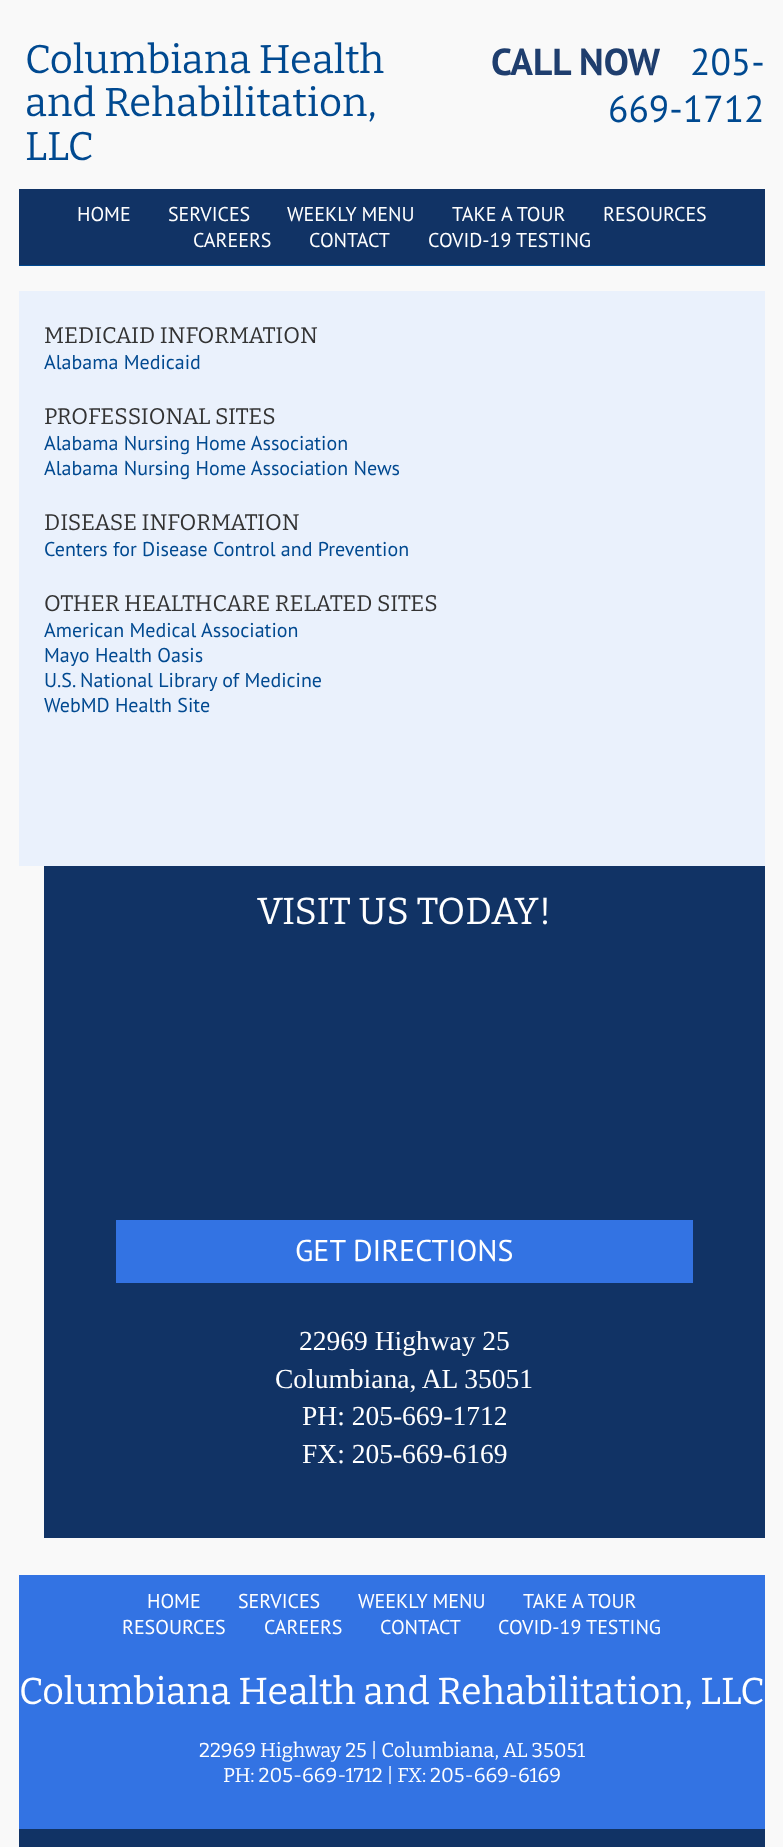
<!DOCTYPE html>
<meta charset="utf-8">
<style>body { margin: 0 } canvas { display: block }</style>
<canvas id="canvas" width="783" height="1847"></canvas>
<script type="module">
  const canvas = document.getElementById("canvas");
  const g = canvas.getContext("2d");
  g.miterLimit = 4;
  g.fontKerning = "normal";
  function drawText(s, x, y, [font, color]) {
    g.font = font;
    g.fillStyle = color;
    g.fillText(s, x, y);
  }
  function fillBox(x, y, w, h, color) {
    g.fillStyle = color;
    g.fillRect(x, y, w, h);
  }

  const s1 = ["40px Bitter", "#004990"];
  const s2 = ["bold 37.5px PT Sans", "#1F3E6E"];
  const s3 = ["37.5px PT Sans", "#004990"];
  const s4 = ["20px PT Sans", "#FFFFFF"];
  const s5 = ["22.5px Bitter", "#333333"];
  const s6 = ["20px PT Sans", "#004990"];
  const s7 = ["37.5px Bitter", "#FFFFFF"];
  const s8 = ["30px PT Sans", "#FFFFFF"];
  const s9 = ["27.5px Liberation Serif", "#FFFFFF"];
  const s10 = ["20px Bitter", "#FFFFFF"];

  fillBox(0, 0, 783, 1847, "#F9F9F9");
  drawText("Columbiana Health", 25, 73, s1);
  drawText("and Rehabilitation,", 25, 116, s1);
  drawText("LLC", 25, 160, s1);
  drawText("CALL NOW", 491, 75, s2);
  drawText("205-", 690, 75, s3);
  drawText("669-1712", 608, 122, s3);
  fillBox(19, 189, 746, 76, "#113365");
  fillBox(19, 265, 746, 1, "#004990");
  drawText("HOME", 77, 221, s4);
  drawText("SERVICES", 168, 221, s4);
  drawText("WEEKLY MENU", 287, 221, s4);
  drawText("TAKE A TOUR", 452, 221, s4);
  drawText("RESOURCES", 603, 221, s4);
  drawText("CAREERS", 193, 247, s4);
  drawText("CONTACT", 309, 247, s4);
  drawText("COVID-19 TESTING", 428, 247, s4);
  fillBox(19, 291, 746, 575, "#EAF1FC");
  drawText("MEDICAID INFORMATION", 44, 343, s5);
  drawText("Alabama Medicaid", 44, 369, s6);
  drawText("PROFESSIONAL SITES", 44, 424, s5);
  drawText("Alabama Nursing Home Association", 44, 450, s6);
  drawText("Alabama Nursing Home Association News", 44, 475, s6);
  drawText("DISEASE INFORMATION", 44, 530, s5);
  drawText("Centers for Disease Control and Prevention", 44, 556, s6);
  drawText("OTHER HEALTHCARE RELATED SITES", 44, 611, s5);
  drawText("American Medical Association", 44, 637, s6);
  drawText("Mayo Health Oasis", 44, 662, s6);
  drawText("U.S. National Library of Medicine", 44, 687, s6);
  drawText("WebMD Health Site", 44, 712, s6);
  fillBox(44, 866, 721, 672, "#113365");
  drawText("VISIT US TODAY!", 257, 924, s7);
  fillBox(116, 1220, 577, 63, "#3373E3");
  drawText("GET DIRECTIONS", 295, 1261, s8);
  drawText("22969 Highway 25", 299, 1350, s9);
  drawText("Columbiana, AL 35051", 275, 1388, s9);
  drawText("PH: 205-669-1712", 302, 1425, s9);
  drawText("FX: 205-669-6169", 302, 1463, s9);
  fillBox(19, 1575, 746, 254, "#3373E3");
  drawText("HOME", 147, 1608, s4);
  drawText("SERVICES", 238, 1608, s4);
  drawText("WEEKLY MENU", 358, 1608, s4);
  drawText("TAKE A TOUR", 523, 1608, s4);
  drawText("RESOURCES", 122, 1634, s4);
  drawText("CAREERS", 264, 1634, s4);
  drawText("CONTACT", 380, 1634, s4);
  drawText("COVID-19 TESTING", 498, 1634, s4);
  drawText("Columbiana Health and Rehabilitation, LLC", 19, 1704, s7);
  drawText("22969 Highway 25 | Columbiana, AL 35051", 199, 1757, s10);
  drawText("PH: 205-669-1712 | FX: 205-669-6169", 223, 1782, s10);
  fillBox(19, 1829, 746, 18, "#113365");
</script>
